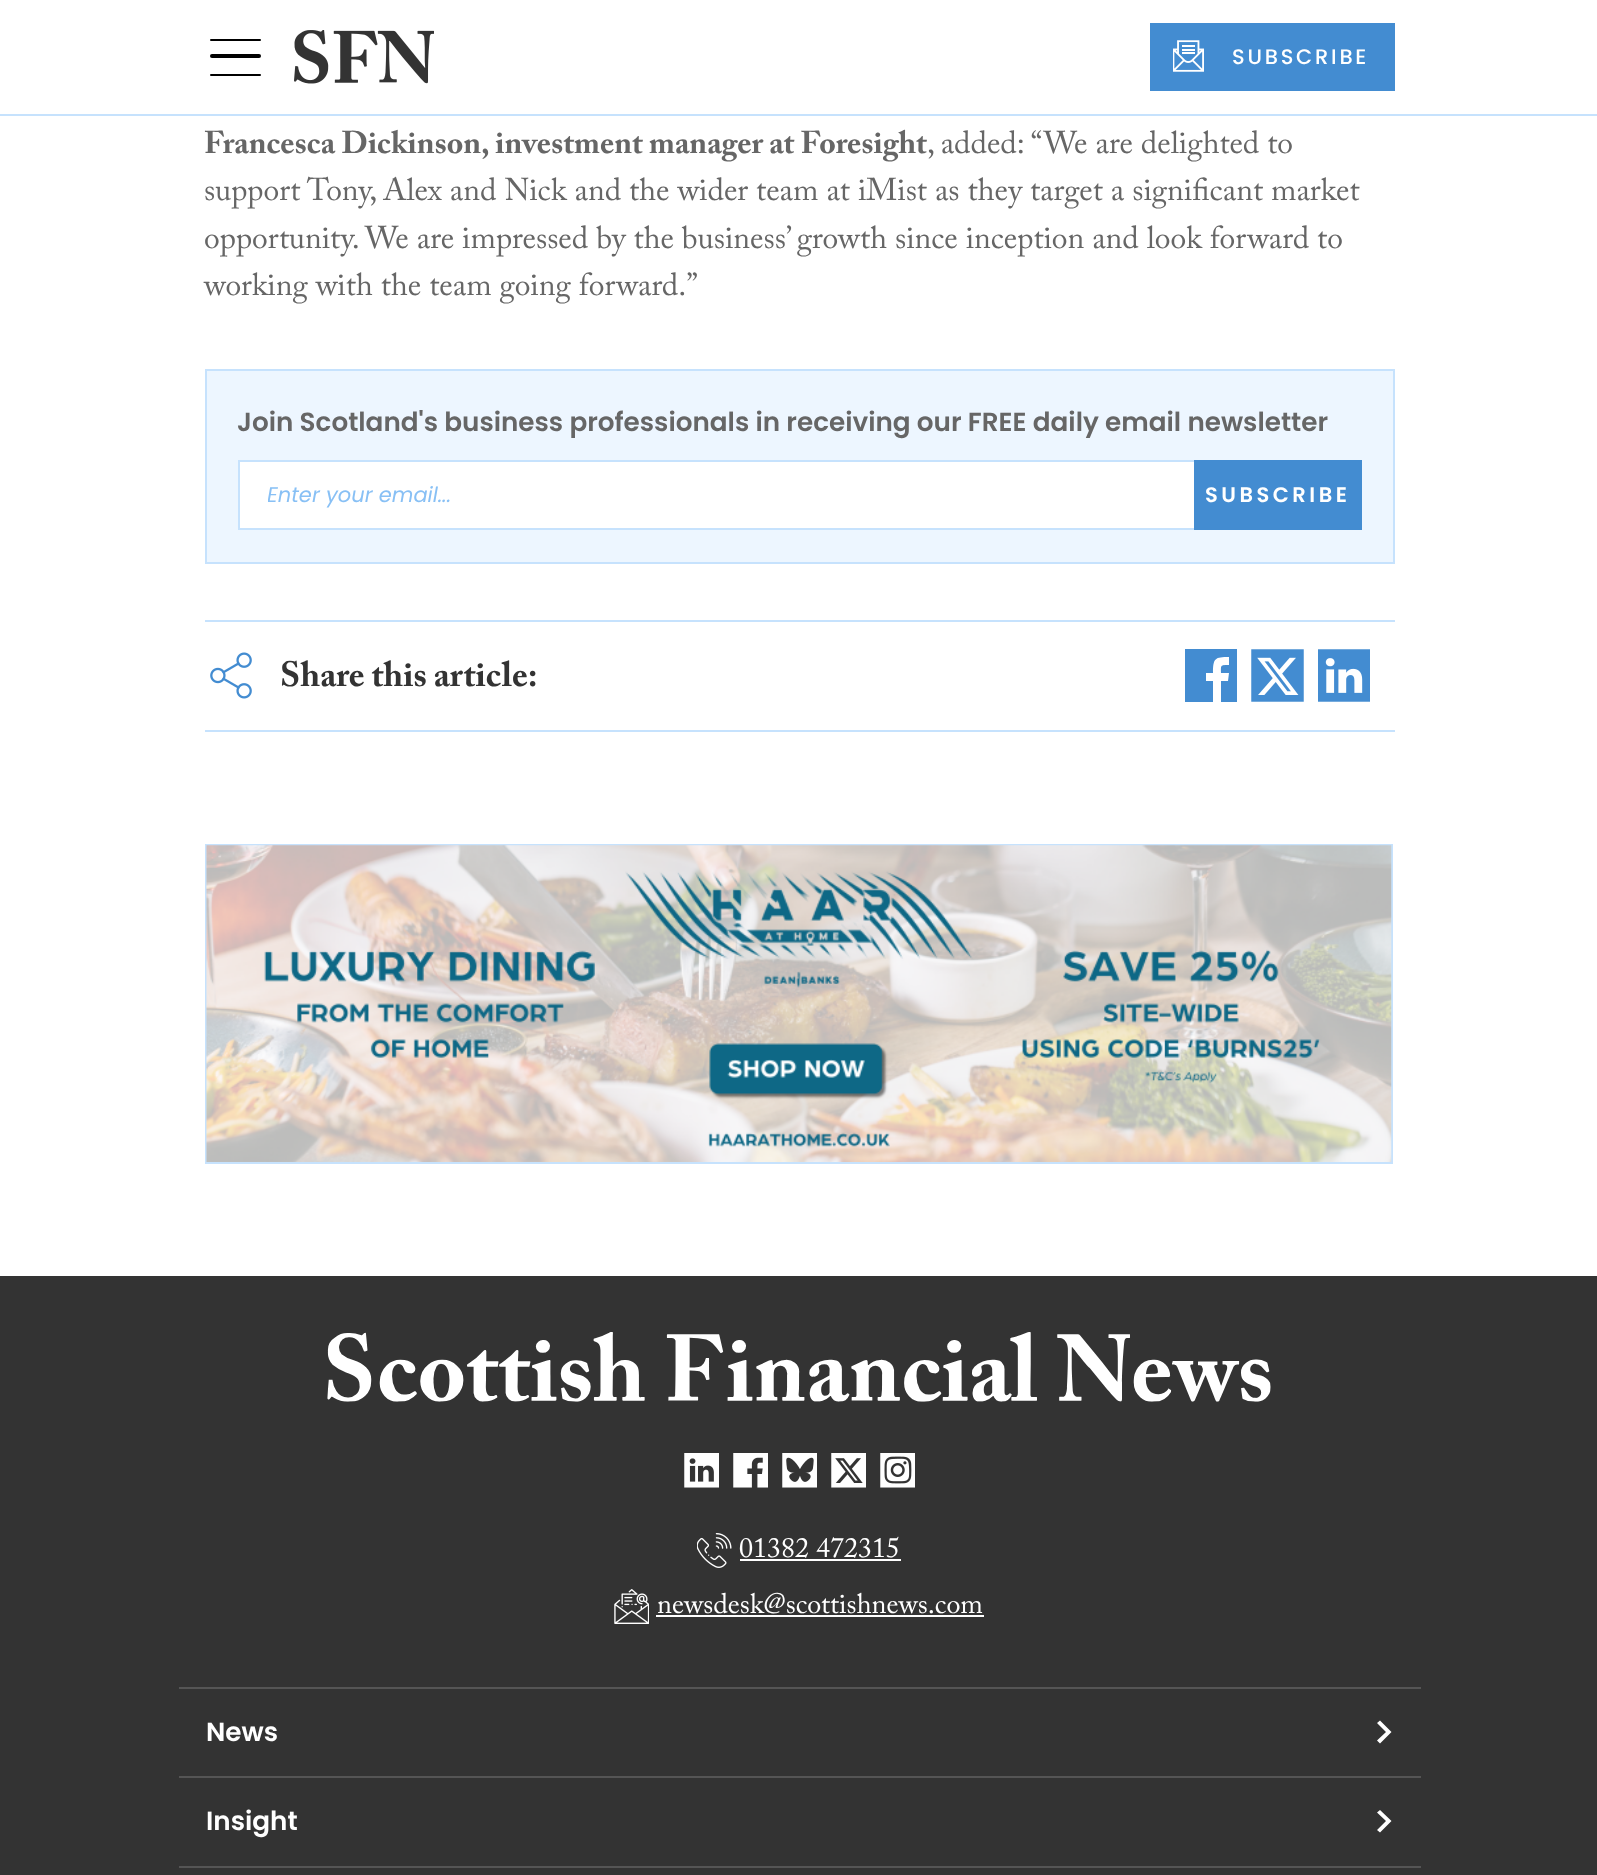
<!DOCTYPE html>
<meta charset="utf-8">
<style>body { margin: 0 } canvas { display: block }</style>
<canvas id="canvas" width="1597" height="1875"></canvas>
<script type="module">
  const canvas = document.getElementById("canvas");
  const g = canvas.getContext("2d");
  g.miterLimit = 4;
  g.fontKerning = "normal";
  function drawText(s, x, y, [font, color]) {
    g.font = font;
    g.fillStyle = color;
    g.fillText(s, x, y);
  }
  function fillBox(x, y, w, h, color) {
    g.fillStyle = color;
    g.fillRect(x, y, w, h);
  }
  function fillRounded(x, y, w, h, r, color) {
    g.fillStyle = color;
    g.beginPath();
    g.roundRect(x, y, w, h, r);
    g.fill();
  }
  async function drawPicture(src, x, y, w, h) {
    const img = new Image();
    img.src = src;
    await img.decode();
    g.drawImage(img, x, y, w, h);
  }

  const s1 = ["500 21px Poppins", "#FFFFFF"];
  const s2 = ["bold 31.5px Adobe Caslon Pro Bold", "#666666"];
  const s3 = ["31.5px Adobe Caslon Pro", "#666666"];
  const s4 = ["600 26.25px Poppins", "#666666"];
  const s5 = ["italic 21px Poppins", "#88C0F5"];
  const s6 = ["600 21px Poppins", "#FFFFFF"];
  const s7 = ["bold 35px Adobe Caslon Pro Bold", "#333333"];
  const s8 = ["28px Adobe Caslon Pro", "#FFFFFF"];
  const s9 = ["600 26.25px Poppins", "#FFFFFF"];

  fillBox(0, 0, 1597, 1875, "#FFFFFF");
  fillBox(0, 114, 1597, 2, "#C6E2FD");
  fillRounded(210, 39, 51, 2, 1, "#000000");
  fillRounded(210, 54, 51, 4, 2, "#000000");
  fillRounded(210, 74, 51, 2, 1, "#000000");
  await drawPicture("pic1.png", 294, 30, 140, 54);
  fillBox(1150, 23, 245, 68, "#438CD1");
  await drawPicture("pic2.png", 1173, 40, 31, 32);
  g.letterSpacing = "2.75px";
  drawText("SUBSCRIBE", 1232, 64, s1);
  g.letterSpacing = "0px";
  drawText("Francesca Dickinson, investment manager at Foresight", 204, 153, s2);
  drawText(", added: “We are delighted to", 927, 153, s3);
  drawText("support Tony, Alex and Nick and the wider team at iMist as they target a significant market", 204, 200, s3);
  drawText("opportunity. We are impressed by the business’ growth since inception and look forward to", 204, 248, s3);
  drawText("working with the team going forward.”", 204, 295, s3);
  g.fillStyle = "#EDF6FF";
  g.beginPath();
  g.rect(206, 370, 1188, 193);
  g.fill();
  g.strokeStyle = "#C6E2FD";
  g.lineWidth = 2;
  g.stroke();
  drawText("Join Scotland's business professionals in receiving our FREE daily email newsletter", 237, 431, s4);
  fillBox(240, 462, 954, 66, "#FFFFFF");
  g.strokeRect(239, 461, 1122, 68);
  g.save();
  g.beginPath();
  g.rect(268, 480, 840, 31);
  g.clip();
  drawText("Enter your email...", 267, 502, s5);
  g.restore();
  fillBox(1194, 460, 168, 70, "#438CD1");
  g.letterSpacing = "3.5px";
  drawText("SUBSCRIBE", 1205, 502, s6);
  fillBox(205, 620, 1190, 2, "#C6E2FD");
  fillBox(205, 730, 1190, 2, "#C6E2FD");
  await drawPicture("pic3.png", 210, 652, 42, 47);
  g.letterSpacing = "0px";
  drawText("Share this article:", 280, 686, s7);
  g.fillStyle = "#438CD1";
  g.beginPath();
  g.moveTo(1185, 649);
  g.lineTo(1185, 702);
  g.lineTo(1213, 702);
  g.lineTo(1213, 681);
  g.lineTo(1206, 681);
  g.lineTo(1206, 673);
  g.lineTo(1213, 673);
  g.bezierCurveTo(1213, 658, 1215, 657, 1229, 657);
  g.lineTo(1229, 665);
  g.bezierCurveTo(1220, 665, 1221, 665, 1221, 673);
  g.lineTo(1229, 673);
  g.lineTo(1228, 681);
  g.lineTo(1221, 681);
  g.lineTo(1221, 702);
  g.lineTo(1237, 702);
  g.lineTo(1237, 649);
  g.closePath();
  g.fill();
  await drawPicture("pic4.png", 1251, 649, 53, 53);
  await drawPicture("pic5.png", 1318, 649, 52, 53);
  g.strokeRect(206, 845, 1186, 318);
  await drawPicture("pic6.png", 206, 845, 1186, 317);
  fillBox(0, 1276, 1597, 599, "#333333");
  fillBox(179, 1687, 1242, 2, "#555555");
  await drawPicture("pic7.png", 327, 1332, 944, 70);
  await drawPicture("pic8.png", 684, 1453, 35, 35);
  await drawPicture("pic9.png", 733, 1453, 35, 35);
  await drawPicture("pic10.png", 782, 1453, 35, 35);
  await drawPicture("pic11.png", 831, 1453, 35, 35);
  await drawPicture("pic12.png", 880, 1453, 35, 35);
  await drawPicture("pic13.png", 697, 1533, 35, 35);
  drawText("01382 472315", 739, 1557, s8);
  fillBox(740, 1559, 161, 2, "#FFFFFF");
  await drawPicture("pic14.png", 614, 1589, 35, 35);
  drawText("newsdesk@scottishnews.com", 657, 1613, s8);
  fillBox(656, 1615, 328, 2, "#FFFFFF");
  fillBox(179, 1776, 1242, 2, "#555555");
  drawText("News", 206, 1741, s9);
  g.beginPath();
  g.moveTo(1380, 1720.5);
  g.lineTo(1377, 1723);
  g.lineTo(1386, 1732);
  g.lineTo(1377, 1740.5);
  g.lineTo(1380, 1743.5);
  g.lineTo(1391.5, 1732);
  g.closePath();
  g.fill("evenodd");
  fillBox(179, 1866, 1242, 2, "#555555");
  drawText("Insight", 206, 1830, s9);
  g.beginPath();
  g.moveTo(1380, 1810);
  g.lineTo(1377, 1812.5);
  g.lineTo(1386, 1821);
  g.lineTo(1377, 1830);
  g.lineTo(1380, 1832.5);
  g.lineTo(1391.5, 1821);
  g.closePath();
  g.fill("evenodd");
</script>
